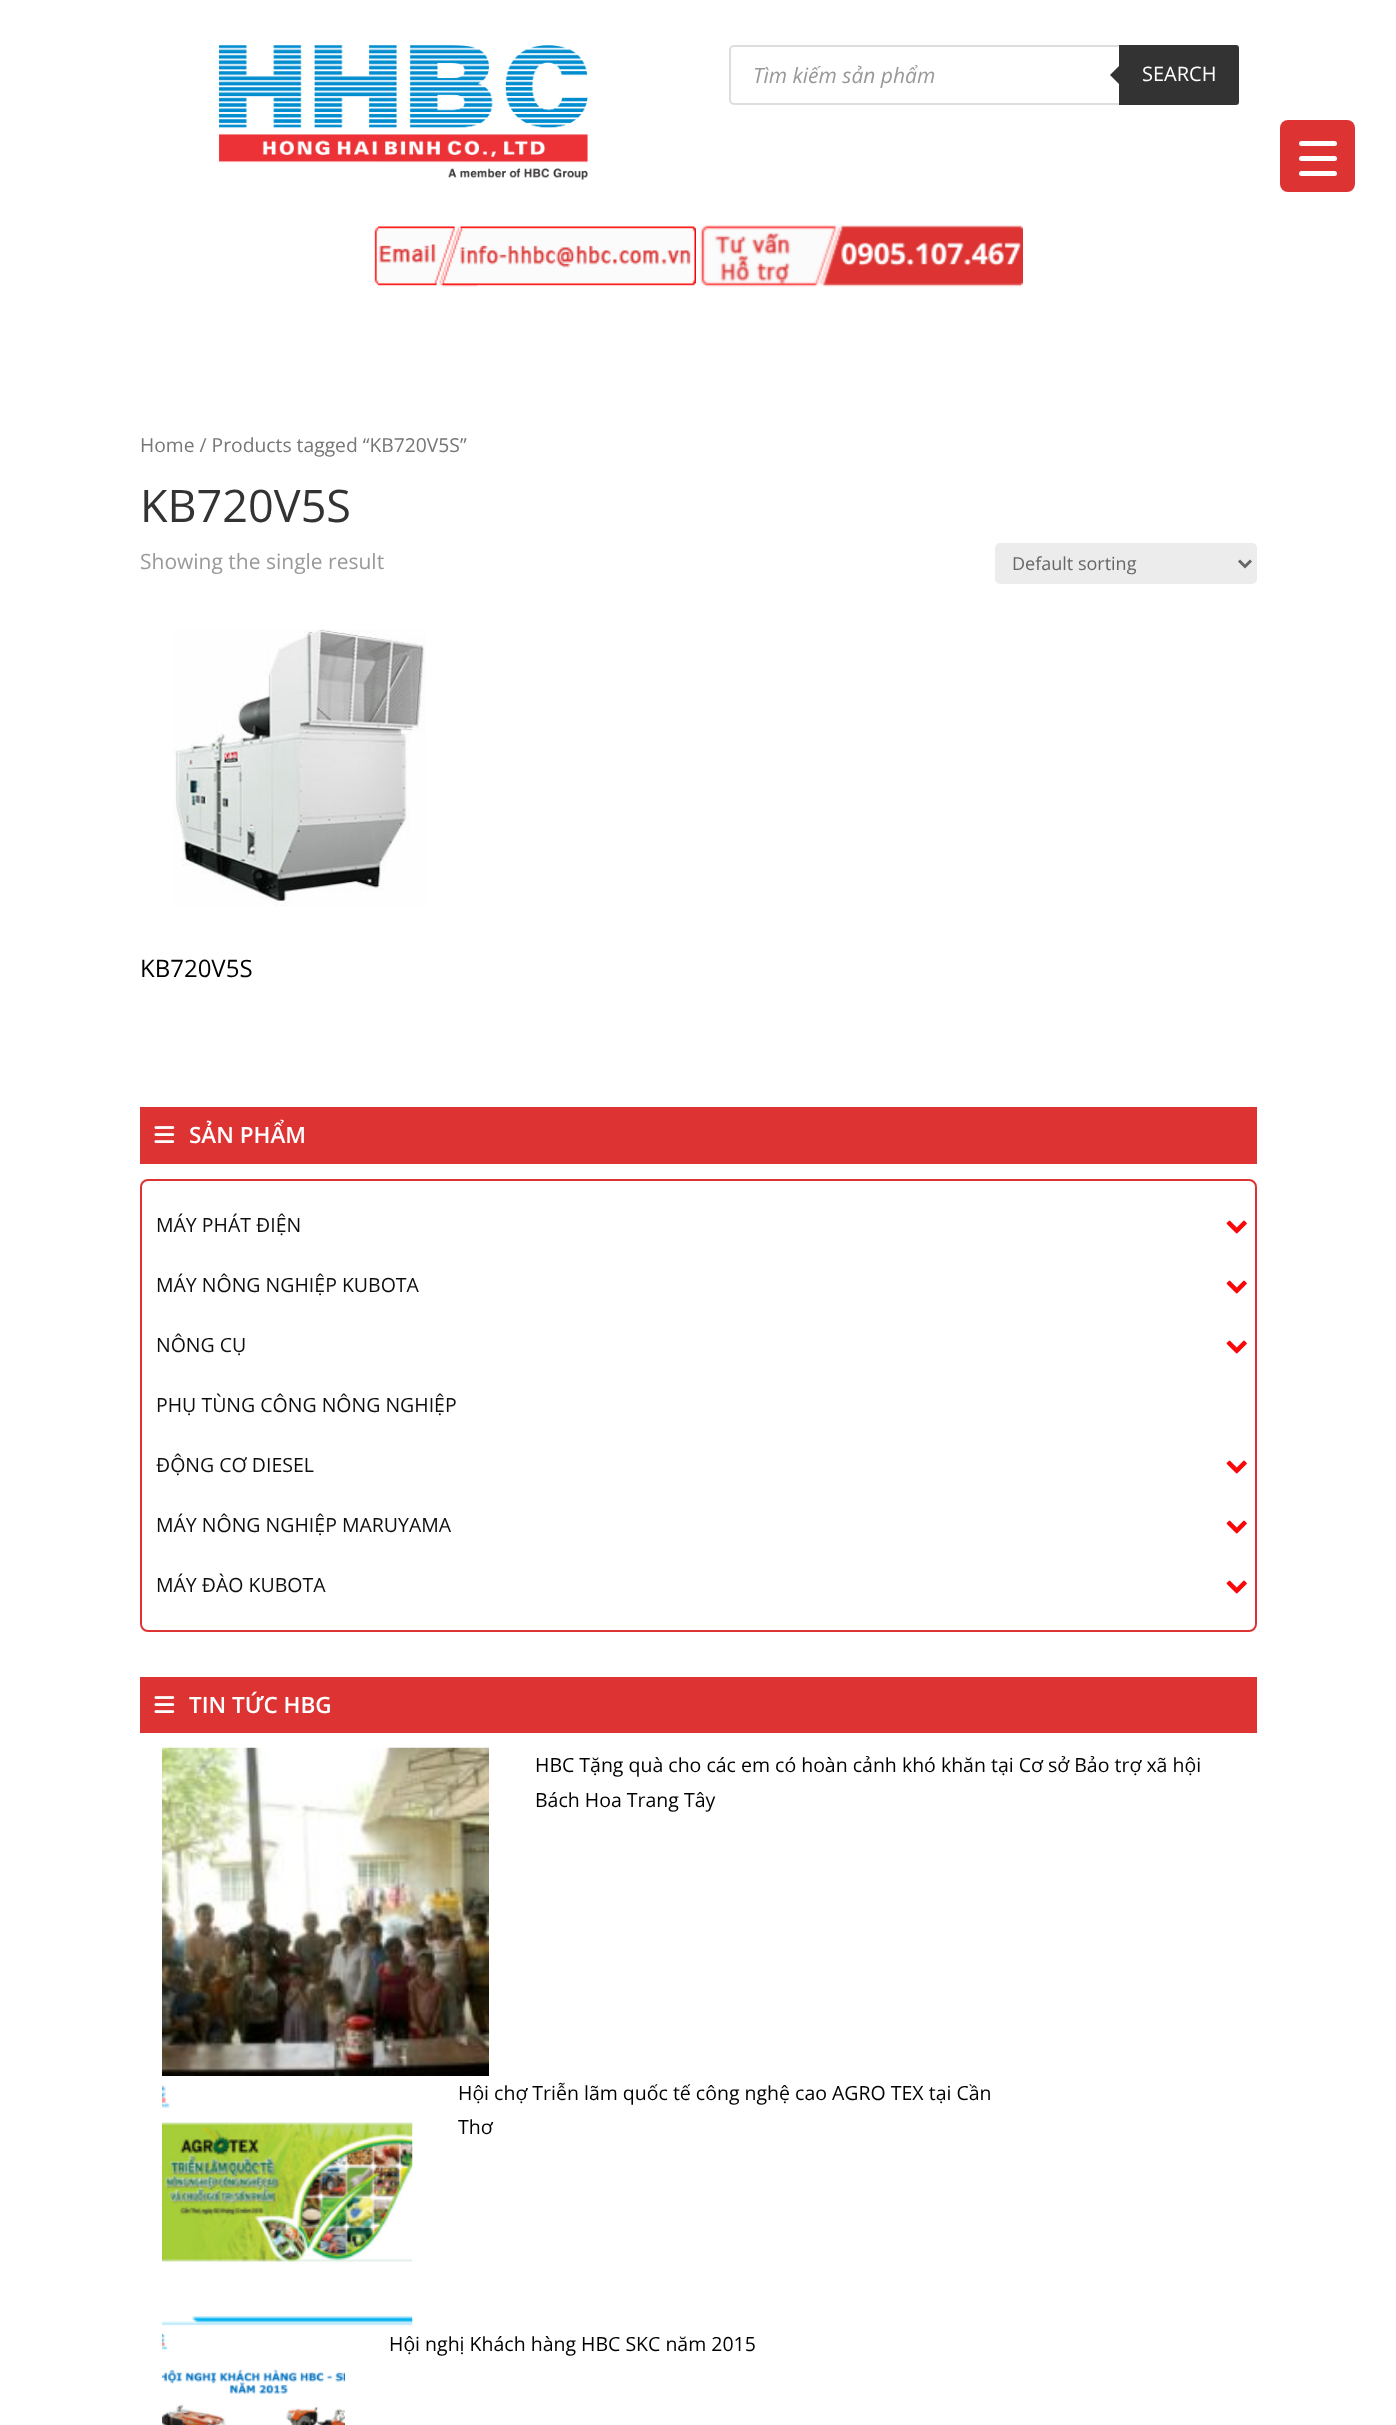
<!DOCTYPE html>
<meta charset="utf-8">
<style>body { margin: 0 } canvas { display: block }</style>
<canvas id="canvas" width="1396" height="2425"></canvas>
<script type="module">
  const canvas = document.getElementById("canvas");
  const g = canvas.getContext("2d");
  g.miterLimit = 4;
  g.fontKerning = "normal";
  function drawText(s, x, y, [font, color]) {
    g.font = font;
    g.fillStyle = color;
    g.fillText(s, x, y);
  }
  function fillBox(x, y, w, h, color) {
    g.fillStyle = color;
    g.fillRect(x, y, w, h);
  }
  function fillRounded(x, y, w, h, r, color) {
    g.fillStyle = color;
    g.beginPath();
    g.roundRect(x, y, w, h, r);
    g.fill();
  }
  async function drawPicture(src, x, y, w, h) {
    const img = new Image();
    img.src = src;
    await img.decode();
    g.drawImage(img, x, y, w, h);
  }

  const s1 = ["italic 21px Open Sans", "#999999"];
  const s2 = ["20px Open Sans", "#FFFFFF"];
  const s3 = ["19.3px Open Sans", "#767676"];
  const s4 = ["45px Open Sans", "#333333"];
  const s5 = ["21px Open Sans", "#999999"];
  const s6 = ["18px Open Sans", "#666666"];
  const s7 = ["24px Open Sans", "#000000"];
  const s8 = ["600 22.5px Open Sans", "#FFFFFF"];
  const s9 = ["19.5px Open Sans", "#0F0E0E"];
  const s10 = ["19.5px Open Sans", "#000000"];

  fillBox(0, 0, 1396, 2425, "#FFFFFF");
  await drawPicture("pic1.png", 219, 45, 369, 135);
  g.beginPath();
  g.roundRect(730, 46, 508, 58, 4);
  g.strokeStyle = "#DDDDDD";
  g.lineWidth = 2;
  g.stroke();
  drawText("Tìm kiếm sản phẩm", 753, 83, s1);
  g.fillStyle = "#333333";
  g.beginPath();
  g.roundRect(1119, 45, 120, 60, [0, 3, 3, 0]);
  g.fill();
  g.beginPath();
  g.moveTo(1122, 63);
  g.lineTo(1122, 87);
  g.lineTo(1110, 75);
  g.closePath();
  g.fill();
  drawText("SEARCH", 1142, 81, s2);
  await drawPicture("pic2.png", 374, 226, 322, 61);
  await drawPicture("pic3.png", 700, 225, 323, 62);
  drawText("Home / Products tagged “KB720V5S”", 140, 452, s3);
  drawText("KB720V5S", 140, 522, s4);
  drawText("Showing the single result", 140, 569, s5);
  fillRounded(995, 543, 262, 41, 5, "#ECECEC");
  g.beginPath();
  g.moveTo(1239, 560.5);
  g.lineTo(1245, 566.5);
  g.lineTo(1251, 560.5);
  g.strokeStyle = "#666666";
  g.lineWidth = 3;
  g.stroke();
  drawText("Default sorting", 1012, 570, s6);
  await drawPicture("pic4.png", 173, 629, 253, 277);
  drawText("KB720V5S", 140, 977, s7);
  fillBox(140, 1107, 1117, 57, "#DD3333");
  await drawPicture("pic5.png", 154, 1126, 21, 17);
  drawText("SẢN PHẨM", 189, 1143, s8);
  g.beginPath();
  g.roundRect(141, 1180, 1115, 451, 7);
  g.strokeStyle = "#DD3333";
  g.lineWidth = 2;
  g.stroke();
  drawText("MÁY PHÁT ĐIỆN", 156, 1232, s9);
  await drawPicture("pic6.png", 1226, 1220, 21, 14);
  drawText("MÁY NÔNG NGHIỆP KUBOTA", 156, 1292, s9);
  await drawPicture("pic6.png", 1226, 1280, 21, 14);
  drawText("NÔNG CỤ", 156, 1352, s9);
  await drawPicture("pic6.png", 1226, 1340, 21, 14);
  drawText("PHỤ TÙNG CÔNG NÔNG NGHIỆP", 156, 1412, s9);
  drawText("ĐỘNG CƠ DIESEL", 156, 1472, s9);
  await drawPicture("pic6.png", 1226, 1460, 21, 14);
  drawText("MÁY NÔNG NGHIỆP MARUYAMA", 156, 1532, s9);
  await drawPicture("pic6.png", 1226, 1520, 21, 14);
  drawText("MÁY ĐÀO KUBOTA", 156, 1592, s9);
  await drawPicture("pic6.png", 1226, 1580, 21, 14);
  fillBox(140, 1677, 1117, 56, "#DD3333");
  await drawPicture("pic5.png", 154, 1696, 21, 17);
  drawText("TIN TỨC HBG", 189, 1713, s8);
  await drawPicture("pic7.png", 162, 1747, 327, 329);
  drawText("HBC Tặng quà cho các em có hoàn cảnh khó khăn tại Cơ sở Bảo trợ xã hội", 535, 1772, s10);
  drawText("Bách Hoa Trang Tây", 535, 1807, s10);
  await drawPicture("pic8.png", 162, 2085, 251, 241);
  drawText("Hội chợ Triễn lãm quốc tế công nghệ cao AGRO TEX tại Cần", 458, 2100, s10);
  drawText("Thơ", 458, 2134, s10);
  await drawPicture("pic9.png", 162, 2333, 183, 92);
  drawText("Hội nghị Khách hàng HBC SKC năm 2015", 389, 2351, s10);
  fillRounded(1280, 120, 75, 72, 8, "#DD3333");
  fillRounded(1299, 156, 38, 5, 2.5, "#FFFFFF");
  fillRounded(1299, 141, 38, 5, 2.5, "#FFFFFF");
  fillRounded(1299, 171, 38, 5, 2.5, "#FFFFFF");
</script>
